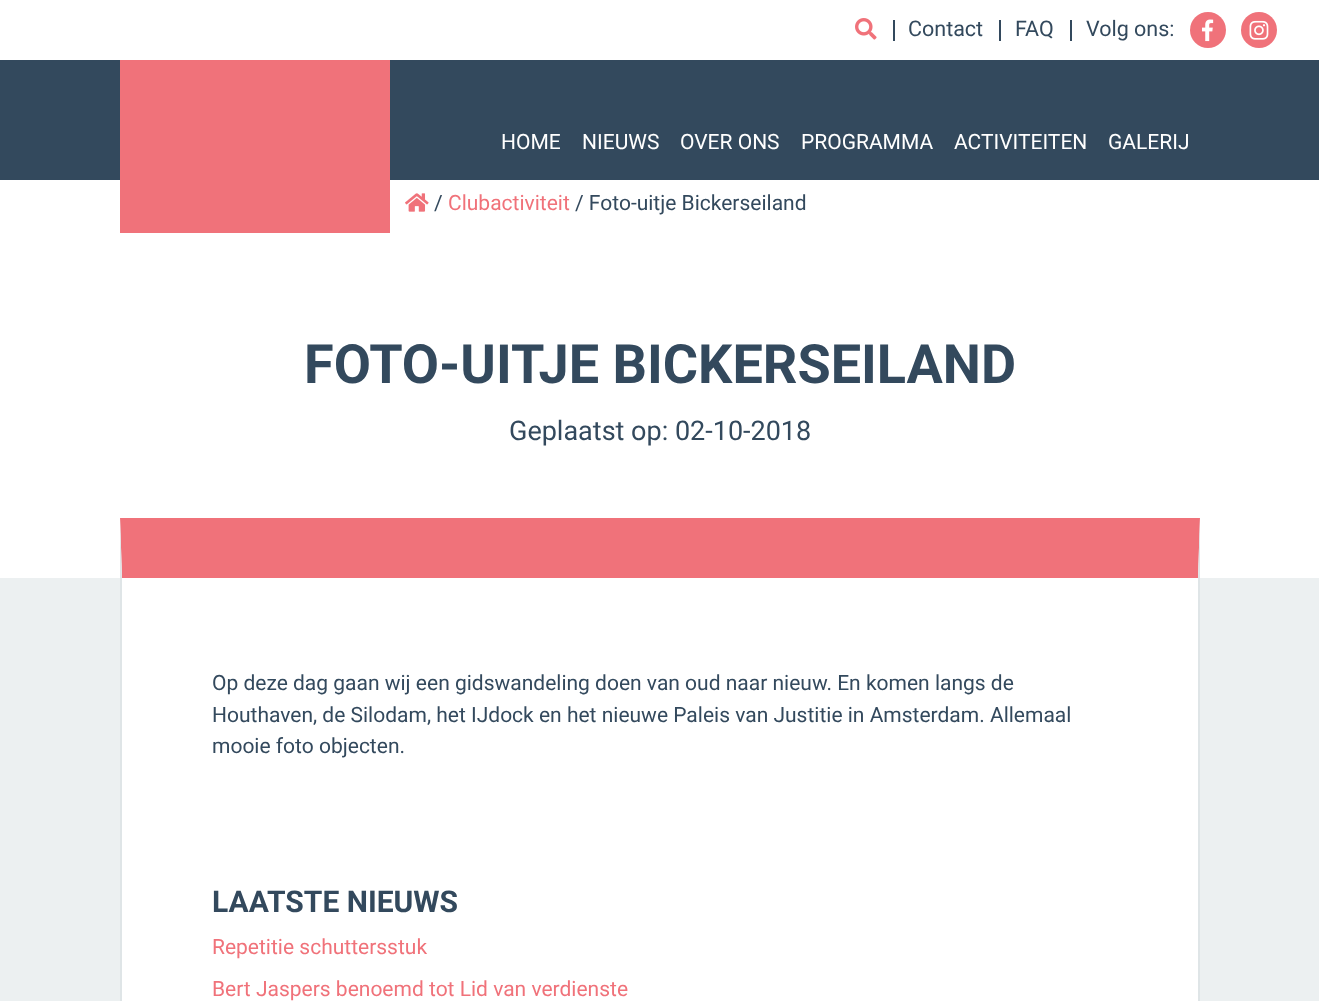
<!DOCTYPE html>
<meta charset="utf-8">
<style>body { margin: 0 } canvas { display: block }</style>
<canvas id="canvas" width="1319" height="1001"></canvas>
<script type="module">
  const canvas = document.getElementById("canvas");
  const g = canvas.getContext("2d");
  g.miterLimit = 4;
  g.fontKerning = "normal";
  function drawText(s, x, y, [font, color]) {
    g.font = font;
    g.fillStyle = color;
    g.fillText(s, x, y);
  }
  function fillBox(x, y, w, h, color) {
    g.fillStyle = color;
    g.fillRect(x, y, w, h);
  }
  async function drawPicture(src, x, y, w, h) {
    const img = new Image();
    img.src = src;
    await img.decode();
    g.drawImage(img, x, y, w, h);
  }

  const s1 = ["21.5px Roboto", "#33495D"];
  const s2 = ["21px Roboto", "#FFFFFF"];
  const s3 = ["21px Roboto", "#33495D"];
  const s4 = ["21px Roboto", "#F0727A"];
  const s5 = ["bold 54px Roboto", "#33495D"];
  const s6 = ["27px Roboto", "#33495D"];
  const s7 = ["bold 30px Roboto", "#33495D"];

  fillBox(0, 0, 1319, 1001, "#FFFFFF");
  await drawPicture("pic1.png", 855, 18, 22, 22);
  fillBox(893, 20, 2, 21, "#33495D");
  fillBox(999, 20, 2, 21, "#33495D");
  drawText("Contact", 908, 36, s1);
  fillBox(1070, 20, 2, 21, "#33495D");
  drawText("FAQ", 1015, 36, s1);
  drawText("Volg ons:", 1086, 36, s1);
  g.fillStyle = "#F0727A";
  g.beginPath();
  g.arc(1208, 30, 18, 0, Math.PI * 2);
  g.fill();
  await drawPicture("pic2.png", 1202, 19, 12, 23);
  g.beginPath();
  g.arc(1259, 30, 18, 0, Math.PI * 2);
  g.fill();
  await drawPicture("pic3.png", 1249, 20, 20, 20);
  fillBox(0, 60, 1319, 120, "#33495D");
  fillBox(120, 60, 270, 173, "#F0727A");
  drawText("HOME", 501, 149, s2);
  drawText("NIEUWS", 582, 149, s2);
  drawText("OVER ONS", 680, 149, s2);
  drawText("PROGRAMMA", 801, 149, s2);
  drawText("ACTIVITEITEN", 954, 149, s2);
  drawText("GALERIJ", 1108, 149, s2);
  await drawPicture("pic4.png", 405, 193, 24, 19);
  drawText("/", 434, 210, s3);
  drawText("Clubactiviteit", 448, 210, s4);
  drawText("/ Foto-uitje Bickerseiland", 575, 210, s3);
  drawText("FOTO-UITJE BICKERSEILAND", 304, 383, s5);
  drawText("Geplaatst op: 02-10-2018", 509, 440, s6);
  fillBox(0, 578, 1319, 423, "#ECF0F1");
  fillBox(122, 578, 1076, 423, "#FFFFFF");
  g.fillStyle = "#F0727A";
  g.beginPath();
  g.moveTo(120, 518);
  g.lineTo(1200, 518);
  g.lineTo(1198, 578);
  g.lineTo(122, 578);
  g.closePath();
  g.fill();
  g.fillStyle = "#DFE5E7";
  g.beginPath();
  g.moveTo(1200, 518);
  g.lineTo(1200, 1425);
  g.lineTo(1198, 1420);
  g.lineTo(1198, 578);
  g.closePath();
  g.fill();
  g.beginPath();
  g.moveTo(120, 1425);
  g.lineTo(120, 518);
  g.lineTo(122, 578);
  g.lineTo(122, 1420);
  g.closePath();
  g.fill();
  drawText("Op deze dag gaan wij een gidswandeling doen van oud naar nieuw. En komen langs de", 212, 690, s3);
  drawText("Houthaven, de Silodam, het IJdock en het nieuwe Paleis van Justitie in Amsterdam. Allemaal", 212, 722, s3);
  drawText("mooie foto objecten.", 212, 753, s3);
  drawText("LAATSTE NIEUWS", 212, 912, s7);
  drawText("Repetitie schuttersstuk", 212, 954, s4);
  drawText("Bert Jaspers benoemd tot Lid van verdienste", 212, 996, s4);
</script>
